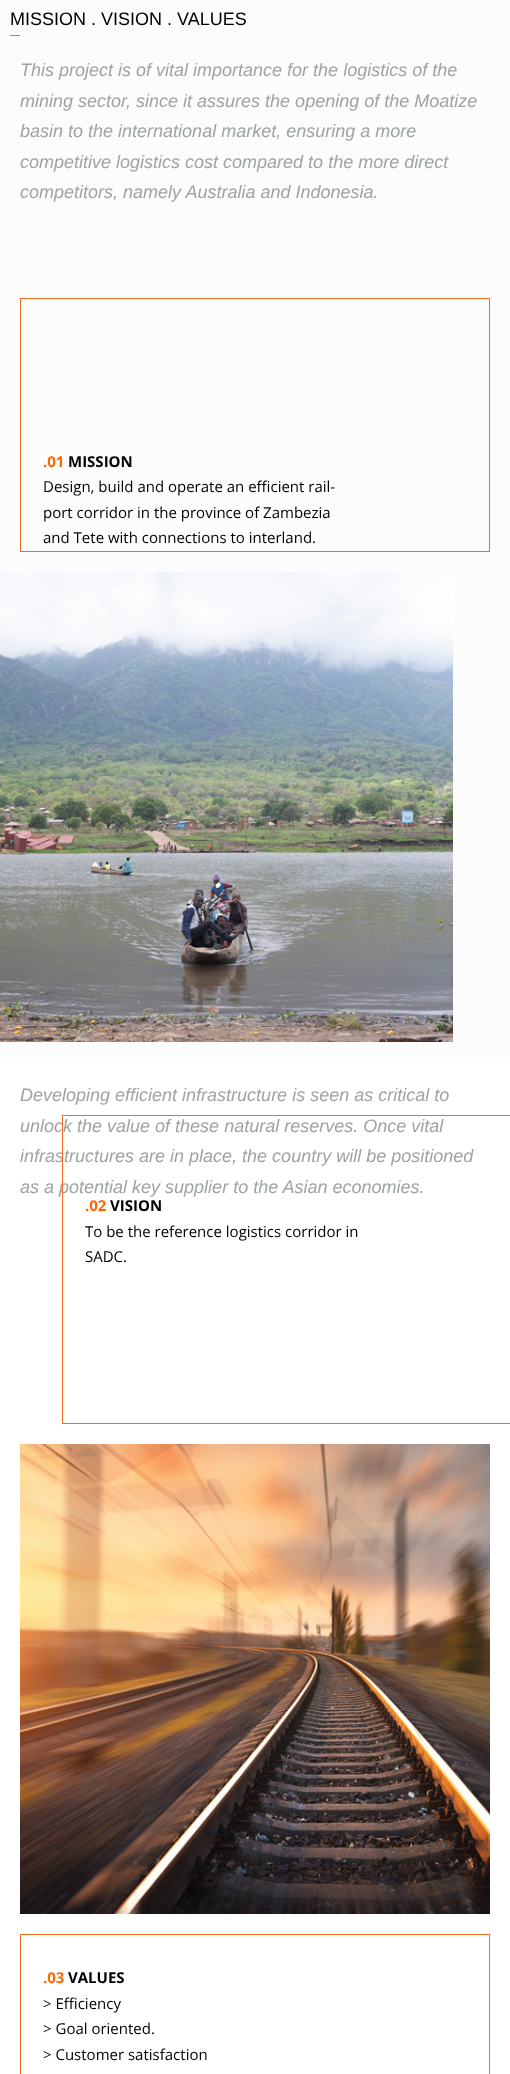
<!DOCTYPE html>
<meta charset="utf-8">
<style>body { margin: 0 } canvas { display: block }</style>
<canvas id="canvas" width="510" height="2074"></canvas>
<script type="module">
  const canvas = document.getElementById("canvas");
  const g = canvas.getContext("2d");
  g.miterLimit = 4;
  g.fontKerning = "normal";
  function drawText(s, x, y, [font, color]) {
    g.font = font;
    g.fillStyle = color;
    g.fillText(s, x, y);
  }
  function fillBox(x, y, w, h, color) {
    g.fillStyle = color;
    g.fillRect(x, y, w, h);
  }
  async function drawPicture(src, x, y, w, h) {
    const img = new Image();
    img.src = src;
    await img.decode();
    g.drawImage(img, x, y, w, h);
  }

  const s1 = ["18px Liberation Sans", "#000000"];
  const s2 = ["italic 18px Liberation Sans", "#9EA3A3"];
  const s3 = ["bold 15px Open Sans", "#FF6600"];
  const s4 = ["bold 15px Open Sans", "#000000"];
  const s5 = ["15px Open Sans", "#000000"];

  fillBox(0, 0, 510, 2074, "#FFFFFF");
  fillBox(0, 0, 510, 1062, "#FCFCFC");
  drawText("MISSION . VISION . VALUES", 10, 25, s1);
  fillBox(10, 35, 10, 1, "#F36C21");
  drawText("This project is of vital importance for the logistics of the", 20, 76, s2);
  drawText("mining sector, since it assures the opening of the Moatize", 20, 107, s2);
  drawText("basin to the international market, ensuring a more", 20, 137, s2);
  drawText("competitive logistics cost compared to the more direct", 20, 168, s2);
  drawText("competitors, namely Australia and Indonesia.", 20, 198, s2);
  g.strokeStyle = "#F36C21";
  g.strokeRect(20.5, 298.5, 469, 253);
  drawText(".01", 43, 467, s3);
  drawText("MISSION", 68, 467, s4);
  drawText("Design, build and operate an efficient rail-", 43, 492, s5);
  drawText("port corridor in the province of Zambezia", 43, 518, s5);
  drawText("and Tete with connections to interland.", 43, 543, s5);
  await drawPicture("pic1.png", 0, 572, 453, 470);
  drawText("Developing efficient infrastructure is seen as critical to", 20, 1101, s2);
  drawText("unlock the value of these natural reserves. Once vital", 20, 1132, s2);
  drawText("infrastructures are in place, the country will be positioned", 20, 1162, s2);
  drawText("as a potential key supplier to the Asian economies.", 20, 1193, s2);
  g.strokeRect(62.5, 1115.5, 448, 308);
  drawText(".02", 85, 1211, s3);
  drawText("VISION", 110, 1211, s4);
  drawText("To be the reference logistics corridor in", 85, 1237, s5);
  drawText("SADC.", 85, 1262, s5);
  await drawPicture("pic2.png", 20, 1444, 470, 470);
  g.strokeRect(20.5, 1934.5, 469, 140);
  drawText(".03", 43, 1983, s3);
  drawText("VALUES", 68, 1983, s4);
  drawText("> Efficiency", 43, 2009, s5);
  drawText("> Goal oriented.", 43, 2034, s5);
  drawText("> Customer satisfaction", 43, 2060, s5);
</script>
